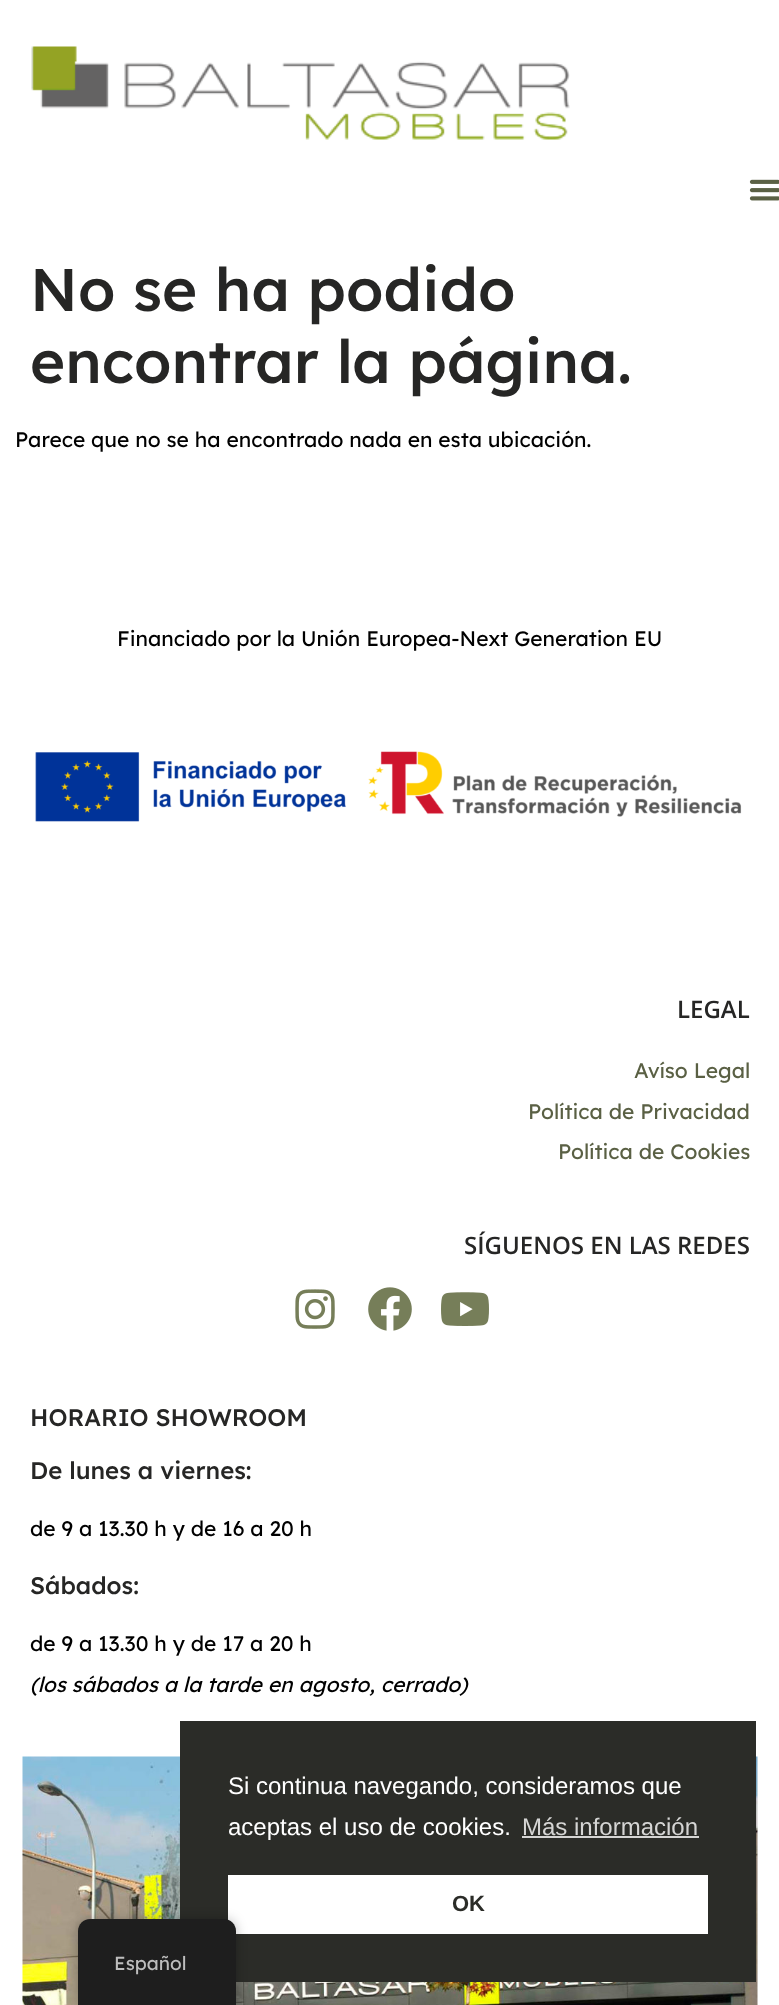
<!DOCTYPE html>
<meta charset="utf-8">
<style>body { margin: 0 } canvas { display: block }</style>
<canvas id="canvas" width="779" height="2005"></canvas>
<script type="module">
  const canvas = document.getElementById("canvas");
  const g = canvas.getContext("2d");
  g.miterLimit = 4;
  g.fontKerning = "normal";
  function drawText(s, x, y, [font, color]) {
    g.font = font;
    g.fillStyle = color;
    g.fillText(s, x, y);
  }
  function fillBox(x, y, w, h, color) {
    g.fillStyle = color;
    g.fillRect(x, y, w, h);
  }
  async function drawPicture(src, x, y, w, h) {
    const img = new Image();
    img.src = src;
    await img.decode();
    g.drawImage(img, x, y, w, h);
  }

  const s1 = ["500 60px Lexend", "#262625"];
  const s2 = ["21px Lexend", "#000000"];
  const s3 = ["600 24px Open Sans", "#262625"];
  const s4 = ["21px Lexend", "#5A6044"];
  const s5 = ["500 24px Lexend", "#262625"];
  const s6 = ["italic 21px Lexend", "#000000"];
  const s7 = ["24px Liberation Sans", "#FFFFFF"];
  const s8 = ["24px Liberation Sans", "#D5D5D4"];
  const s9 = ["bold 22px Liberation Sans", "#2B2C28"];
  const s10 = ["19px Lexend", "#BDBDBD"];

  fillBox(0, 0, 779, 2005, "#FFFFFF");
  await drawPicture("pic1.png", 31, 46, 539, 94);
  await drawPicture("pic2.png", 749, 179, 30, 22);
  drawText("No se ha podido", 30, 311, s1);
  drawText("encontrar la página.", 30, 383, s1);
  drawText("Parece que no se ha encontrado nada en esta ubicación.", 15, 447, s2);
  drawText("Financiado por la Unión Europea-Next Generation EU", 117, 646, s2);
  await drawPicture("pic3.png", 35, 751, 707, 71);
  drawText("LEGAL", 677, 1018, s3);
  drawText("Avíso Legal", 634, 1078, s4);
  drawText("Política de Privacidad", 528, 1119, s4);
  drawText("Política de Cookies", 558, 1159, s4);
  drawText("SÍGUENOS EN LAS REDES", 464, 1254, s3);
  await drawPicture("pic4.png", 295, 1289, 40, 40);
  await drawPicture("pic5.png", 368, 1287, 44, 44);
  await drawPicture("pic6.png", 441, 1292, 48, 34);
  drawText("HORARIO SHOWROOM", 30, 1426, s5);
  drawText("De lunes a viernes:", 30, 1479, s5);
  drawText("de 9 a 13.30 h y de 16 a 20 h", 30, 1536, s2);
  drawText("Sábados:", 30, 1594, s5);
  drawText("de 9 a 13.30 h y de 17 a 20 h", 30, 1651, s2);
  drawText("(los sábados a la tarde en agosto, cerrado)", 30, 1692, s6);
  await drawPicture("pic7.png", 22, 1756, 736, 249);
  fillBox(180, 1721, 576, 261, "#2B2C28");
  drawText("Si continua navegando, consideramos que", 228, 1794, s7);
  drawText("aceptas el uso de cookies.", 228, 1835, s7);
  drawText("Más información", 522, 1835, s8);
  fillBox(522, 1836, 177, 2, "#D5D5D4");
  fillBox(228, 1875, 480, 59, "#FFFFFF");
  drawText("OK", 452, 1911, s9);
  g.fillStyle = "rgba(0, 0, 0, 0.25)";
  g.filter = "blur(6px)";
  g.beginPath();
  g.roundRect(78, 1919, 158, 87, 12);
  g.fill();
  g.filter = "none";
  g.fillStyle = "#1E1E1E";
  g.beginPath();
  g.moveTo(90, 1919);
  g.lineTo(224, 1919);
  g.bezierCurveTo(230.5, 1919, 236, 1924.5, 236, 1931);
  g.lineTo(236, 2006);
  g.lineTo(78, 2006);
  g.lineTo(78, 1931);
  g.bezierCurveTo(78, 1924.5, 83.5, 1919, 90, 1919);
  g.closePath();
  g.fill();
  drawText("Español", 114, 1970, s10);
</script>
